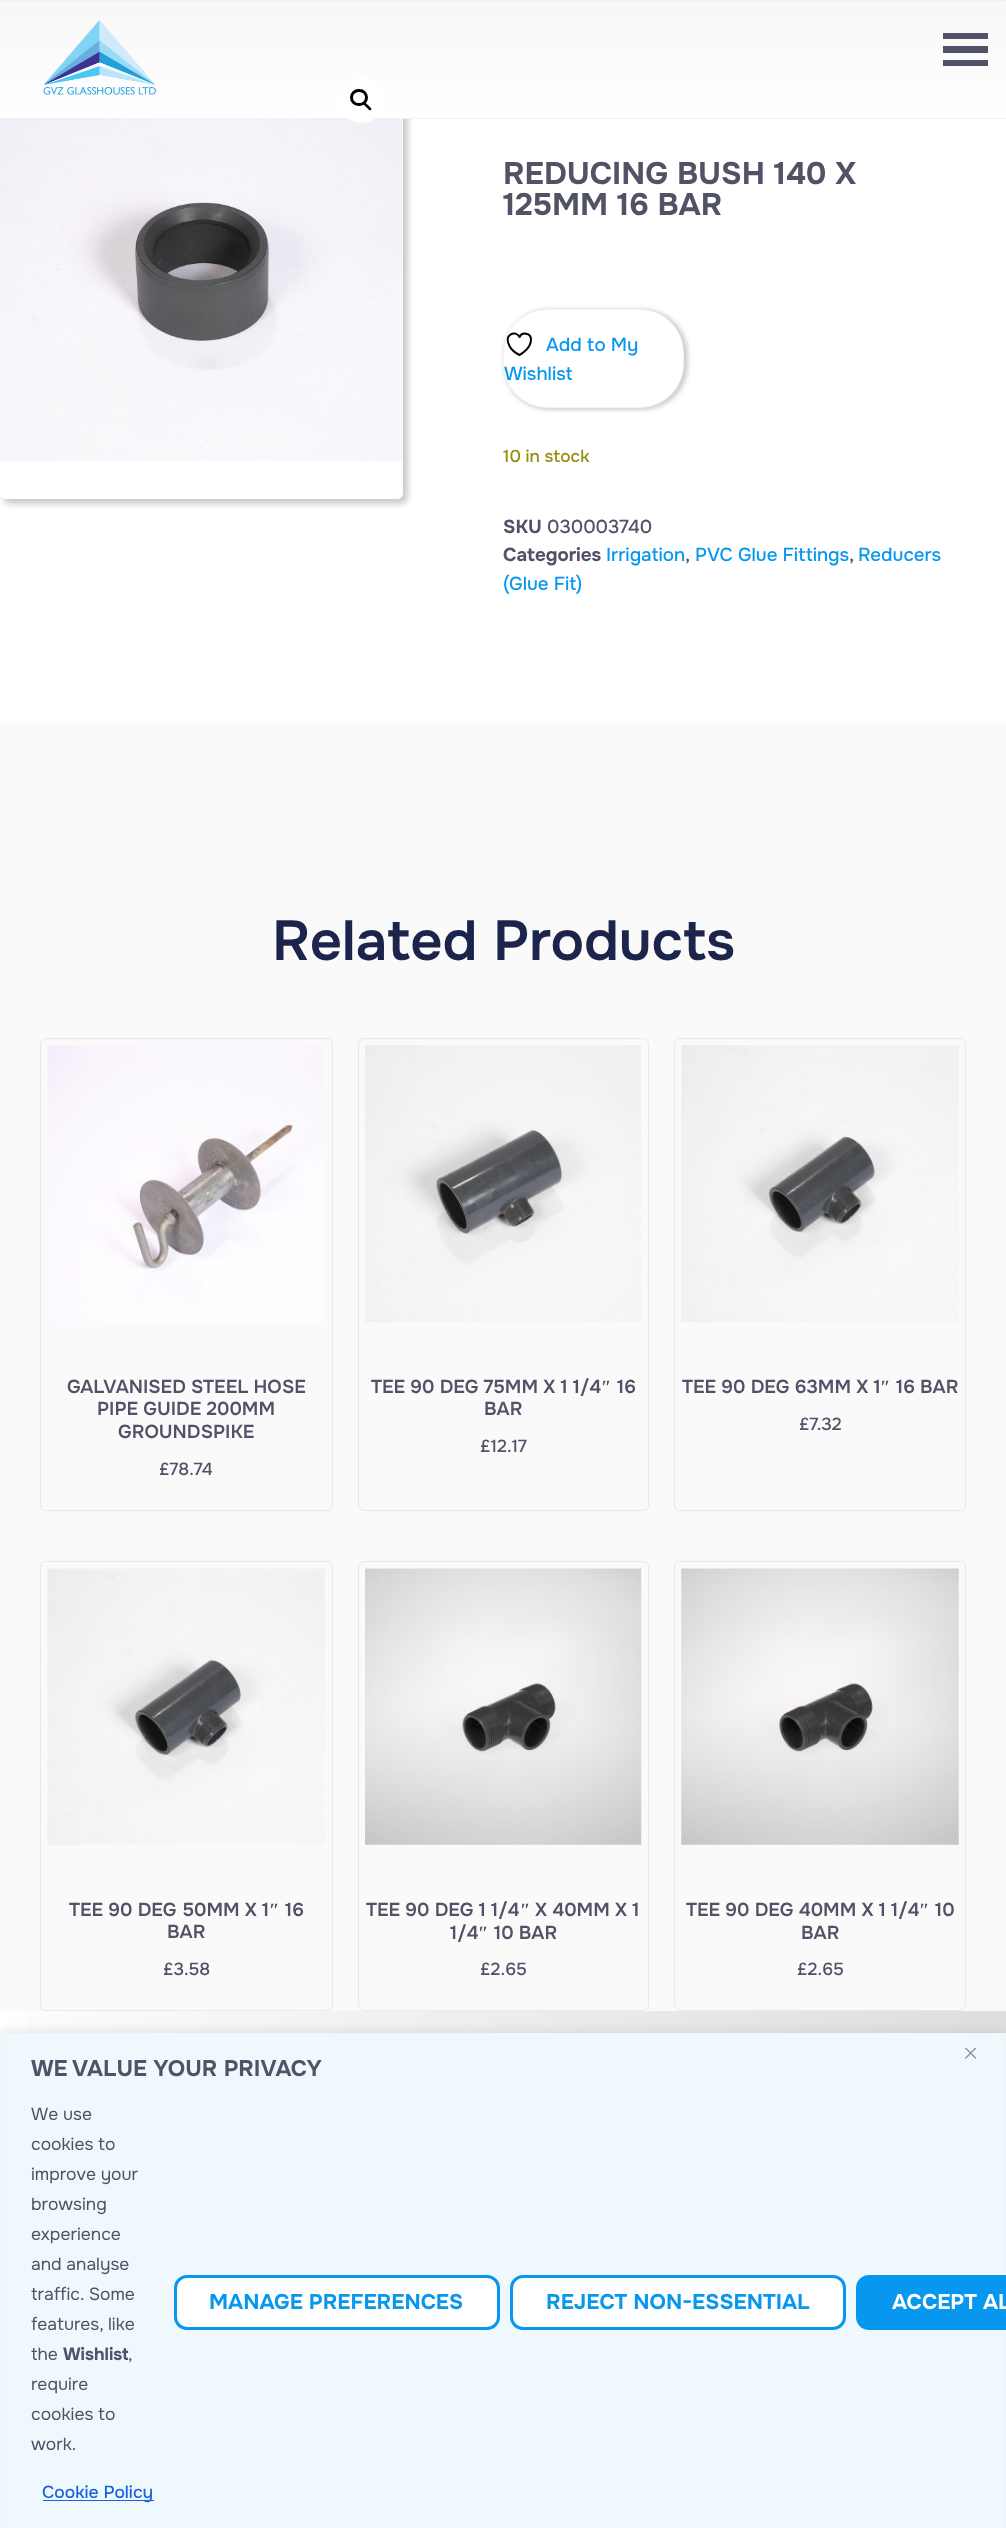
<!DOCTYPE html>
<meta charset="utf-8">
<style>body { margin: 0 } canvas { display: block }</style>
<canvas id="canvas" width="1006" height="2528"></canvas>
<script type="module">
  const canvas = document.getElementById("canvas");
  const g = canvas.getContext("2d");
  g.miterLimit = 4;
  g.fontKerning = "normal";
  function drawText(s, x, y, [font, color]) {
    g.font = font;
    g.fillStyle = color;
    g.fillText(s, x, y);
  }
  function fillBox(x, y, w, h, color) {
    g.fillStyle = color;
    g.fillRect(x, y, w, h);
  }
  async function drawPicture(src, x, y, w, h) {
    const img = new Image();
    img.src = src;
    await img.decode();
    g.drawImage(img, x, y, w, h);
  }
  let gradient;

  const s1 = ["bold 31.25px Onest", "#515266"];
  const s2 = ["500 18.75px Onest", "#0797EF"];
  const s3 = ["500 17.25px Onest", "#958E09"];
  const s4 = ["bold 18.75px Onest", "#515266"];
  const s5 = ["500 18.75px Onest", "#515266"];
  const s6 = ["600 56.25px Onest", "#1C244B"];
  const s7 = ["600 18.75px Onest", "#515266"];
  const s8 = ["500 17.5px Onest", "#515266"];
  const s9 = ["bold 18.75px Liberation Serif", "#515266"];
  const s10 = ["bold 22.5px Onest", "#515266"];
  const s11 = ["17.5px Onest", "#515266"];
  const s12 = ["bold 17.5px Onest", "#515266"];
  const s13 = ["500 17.5px Onest", "#1863DC"];
  const s14 = ["bold 21.25px Onest", "#0797EF"];
  const s15 = ["bold 21.25px Onest", "#FFFFFF"];

  fillBox(0, 0, 1006, 2528, "#FFFFFF");
  g.save();
  g.beginPath();
  g.moveTo(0, 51);
  g.lineTo(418, 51);
  g.lineTo(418, 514);
  g.lineTo(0, 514);
  g.closePath();
  g.moveTo(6, 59);
  g.lineTo(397, 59);
  g.bezierCurveTo(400.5, 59, 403, 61.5, 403, 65);
  g.lineTo(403, 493);
  g.bezierCurveTo(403, 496.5, 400.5, 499, 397, 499);
  g.lineTo(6, 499);
  g.bezierCurveTo(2.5, 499, 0, 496.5, 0, 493);
  g.lineTo(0, 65);
  g.bezierCurveTo(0, 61.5, 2.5, 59, 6, 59);
  g.closePath();
  g.clip("evenodd");
  g.fillStyle = "rgba(0, 0, 0, 0.21)";
  g.filter = "blur(3px)";
  g.beginPath();
  g.roundRect(3, 61, 405, 443, 8);
  g.fill();
  g.filter = "none";
  g.restore();
  gradient = g.createLinearGradient(503, 1.2, 503, 118);
  gradient.addColorStop(0, "#F7F7F7");
  gradient.addColorStop(1, "#FFFFFF");
  g.fillStyle = gradient;
  g.fillRect(0, 1, 1006, 117);
  fillBox(0, 0, 1006, 1, "#F2F1F1");
  fillBox(0, 118, 1006, 1, "#F2F1F1");
  await drawPicture("pic1.png", 43, 20, 114, 75);
  fillBox(943, 33, 45, 6, "#515266");
  fillBox(943, 46, 45, 7, "#515266");
  fillBox(943, 60, 45, 6, "#515266");
  await drawPicture("pic2.png", 0, 119, 403, 342);
  g.fillStyle = "#FFFFFF";
  g.beginPath();
  g.arc(361.5, 100.5, 22.5, 0, Math.PI * 2);
  g.fill();
  g.beginPath();
  g.roundRect(351.5, 90.5, 15, 14, 7);
  g.strokeStyle = "#000000";
  g.lineWidth = 3;
  g.stroke();
  g.fillStyle = "#000000";
  g.beginPath();
  g.moveTo(364, 103);
  g.bezierCurveTo(365.5, 101.5, 367.5, 105, 368.5, 105.5);
  g.bezierCurveTo(369, 106.5, 372.5, 108.5, 371, 110);
  g.bezierCurveTo(369.5, 111.5, 367.5, 108, 366.5, 107.5);
  g.bezierCurveTo(366, 106.5, 362.5, 104.5, 364, 103);
  g.closePath();
  g.fill();
  drawText("REDUCING BUSH 140 X", 503, 184, s1);
  drawText("125MM 16 BAR", 503, 215, s1);
  g.fillStyle = "rgba(0, 0, 0, 0.19)";
  g.filter = "blur(2px)";
  g.beginPath();
  g.roundRect(504, 309, 184, 101, 45);
  g.fill();
  g.filter = "none";
  g.fillStyle = "#FFFFFF";
  g.beginPath();
  g.roundRect(503.5, 309.5, 180, 98, 43.5);
  g.fill();
  g.strokeStyle = "#F2F2F2";
  g.lineWidth = 1;
  g.stroke();
  g.beginPath();
  g.moveTo(531, 339.5);
  g.bezierCurveTo(531, 333, 522, 331.5, 519.5, 337);
  g.bezierCurveTo(516, 329.5, 503, 334.5, 509.5, 346);
  g.bezierCurveTo(511.5, 350, 515.5, 353, 519.5, 355);
  g.bezierCurveTo(519.5, 355, 531, 349, 531, 339.5);
  g.closePath();
  g.strokeStyle = "#000000";
  g.lineWidth = 2;
  g.lineCap = "round";
  g.lineJoin = "round";
  g.stroke();
  drawText("Add to My", 546, 351, s2);
  drawText("Wishlist", 504, 380, s2);
  drawText("10 in stock", 503, 462, s3);
  drawText("SKU", 503, 533, s4);
  drawText("030003740", 547, 533, s5);
  drawText("Categories", 503, 561, s4);
  drawText("Irrigation", 606, 561, s2);
  drawText(",", 685, 561, s5);
  drawText("PVC Glue Fittings", 695, 561, s2);
  drawText(",", 849, 561, s5);
  drawText("Reducers", 858, 561, s2);
  drawText("(Glue Fit)", 503, 590, s2);
  fillBox(0, 723, 1006, 1288, "#FAFAFA");
  drawText("Related Products", 272, 960, s6);
  g.beginPath();
  g.roundRect(40.5, 1038.5, 292, 472, 5.5);
  g.strokeStyle = "#EAE9E9";
  g.lineWidth = 1;
  g.lineJoin = "miter";
  g.stroke();
  await drawPicture("pic3.png", 47, 1045, 278, 277);
  drawText("GALVANISED STEEL HOSE", 67, 1393, s7);
  drawText("PIPE GUIDE 200MM", 97, 1415, s7);
  drawText("GROUNDSPIKE", 118, 1438, s7);
  drawText("£78.74", 159, 1475, s8);
  g.beginPath();
  g.roundRect(358.5, 1038.5, 290, 472, 5.5);
  g.stroke();
  await drawPicture("pic4.png", 365, 1045, 276, 277);
  drawText("TEE 90 DEG 75MM X 1 1/4", 371, 1393, s7);
  drawText("″", 601, 1393, s9);
  drawText("16", 617, 1393, s7);
  drawText("BAR", 484, 1415, s7);
  drawText("£12.17", 480, 1452, s8);
  g.beginPath();
  g.roundRect(674.5, 1038.5, 291, 472, 5.5);
  g.stroke();
  await drawPicture("pic5.png", 681, 1045, 278, 277);
  drawText("TEE 90 DEG 63MM X 1", 682, 1393, s7);
  drawText("″", 880, 1393, s9);
  drawText("16 BAR", 896, 1393, s7);
  drawText("£7.32", 799, 1430, s8);
  g.beginPath();
  g.roundRect(40.5, 1561.5, 292, 449, 5.5);
  g.stroke();
  await drawPicture("pic6.png", 47, 1568, 278, 277);
  drawText("TEE 90 DEG 50MM X 1", 69, 1916, s7);
  drawText("″", 269, 1916, s9);
  drawText("16", 285, 1916, s7);
  drawText("BAR", 167, 1938, s7);
  drawText("£3.58", 163, 1975, s8);
  g.beginPath();
  g.roundRect(358.5, 1561.5, 290, 449, 5.5);
  g.stroke();
  await drawPicture("pic7.png", 365, 1568, 277, 277);
  drawText("TEE 90 DEG 1 1/4", 366, 1916, s7);
  drawText("″", 520, 1916, s9);
  drawText("X 40MM X 1", 535, 1916, s7);
  drawText("1/4", 450, 1939, s7);
  drawText("″", 478, 1939, s9);
  drawText("10 BAR", 494, 1939, s7);
  drawText("£2.65", 480, 1975, s8);
  g.beginPath();
  g.roundRect(674.5, 1561.5, 291, 449, 5.5);
  g.stroke();
  await drawPicture("pic8.png", 681, 1568, 278, 277);
  drawText("TEE 90 DEG 40MM X 1 1/4", 686, 1916, s7);
  drawText("″", 919, 1916, s9);
  drawText("10", 935, 1916, s7);
  drawText("BAR", 801, 1939, s7);
  drawText("£2.65", 797, 1975, s8);
  gradient = g.createLinearGradient(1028, 2215, -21, 2325);
  gradient.addColorStop(0, "#DEDEDE");
  gradient.addColorStop(1, "#FFFFFF");
  g.fillStyle = gradient;
  g.fillRect(26, 2011, 980, 22);
  g.fillStyle = "rgba(172, 171, 171, 0.3)";
  g.filter = "blur(6px)";
  g.beginPath();
  g.rect(0, 2031, 1006, 497);
  g.fill();
  g.filter = "none";
  g.fillStyle = "#EEF8FD";
  g.beginPath();
  g.rect(0.5, 2033.5, 1005, 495);
  g.fill();
  g.strokeStyle = "#F4F4F4";
  g.stroke();
  await drawPicture("pic9.png", 965, 2048, 11, 11);
  drawText("WE VALUE YOUR PRIVACY", 31, 2076, s10);
  drawText("We use", 31, 2120, s11);
  drawText("cookies to", 31, 2150, s11);
  drawText("improve your", 31, 2180, s11);
  drawText("browsing", 31, 2210, s11);
  drawText("experience", 31, 2240, s11);
  drawText("and analyse", 31, 2270, s11);
  drawText("traffic. Some", 31, 2300, s11);
  drawText("features, like", 31, 2330, s11);
  drawText("the", 31, 2360, s11);
  drawText("Wishlist", 63, 2360, s12);
  drawText(",", 128, 2360, s11);
  drawText("require", 31, 2390, s11);
  drawText("cookies to", 31, 2420, s11);
  drawText("work.", 31, 2450, s11);
  fillBox(43, 2500, 111, 1, "#1863DC");
  drawText("Cookie Policy", 42, 2498, s13);
  g.fillStyle = "#FFFFFF";
  g.beginPath();
  g.roundRect(175.5, 2276.5, 323, 52, 11.5);
  g.fill();
  g.strokeStyle = "#0797EF";
  g.lineWidth = 3;
  g.stroke();
  drawText("MANAGE PREFERENCES", 209, 2309, s14);
  g.fillStyle = "#FFFFFF";
  g.beginPath();
  g.roundRect(511.5, 2276.5, 333, 52, 11.5);
  g.fill();
  g.stroke();
  drawText("REJECT NON-ESSENTIAL", 546, 2309, s14);
  g.beginPath();
  g.roundRect(857.5, 2276.5, 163, 52, 11.5);
  g.fill();
  g.stroke();
  drawText("ACCEPT AL", 892, 2309, s15);
</script>
